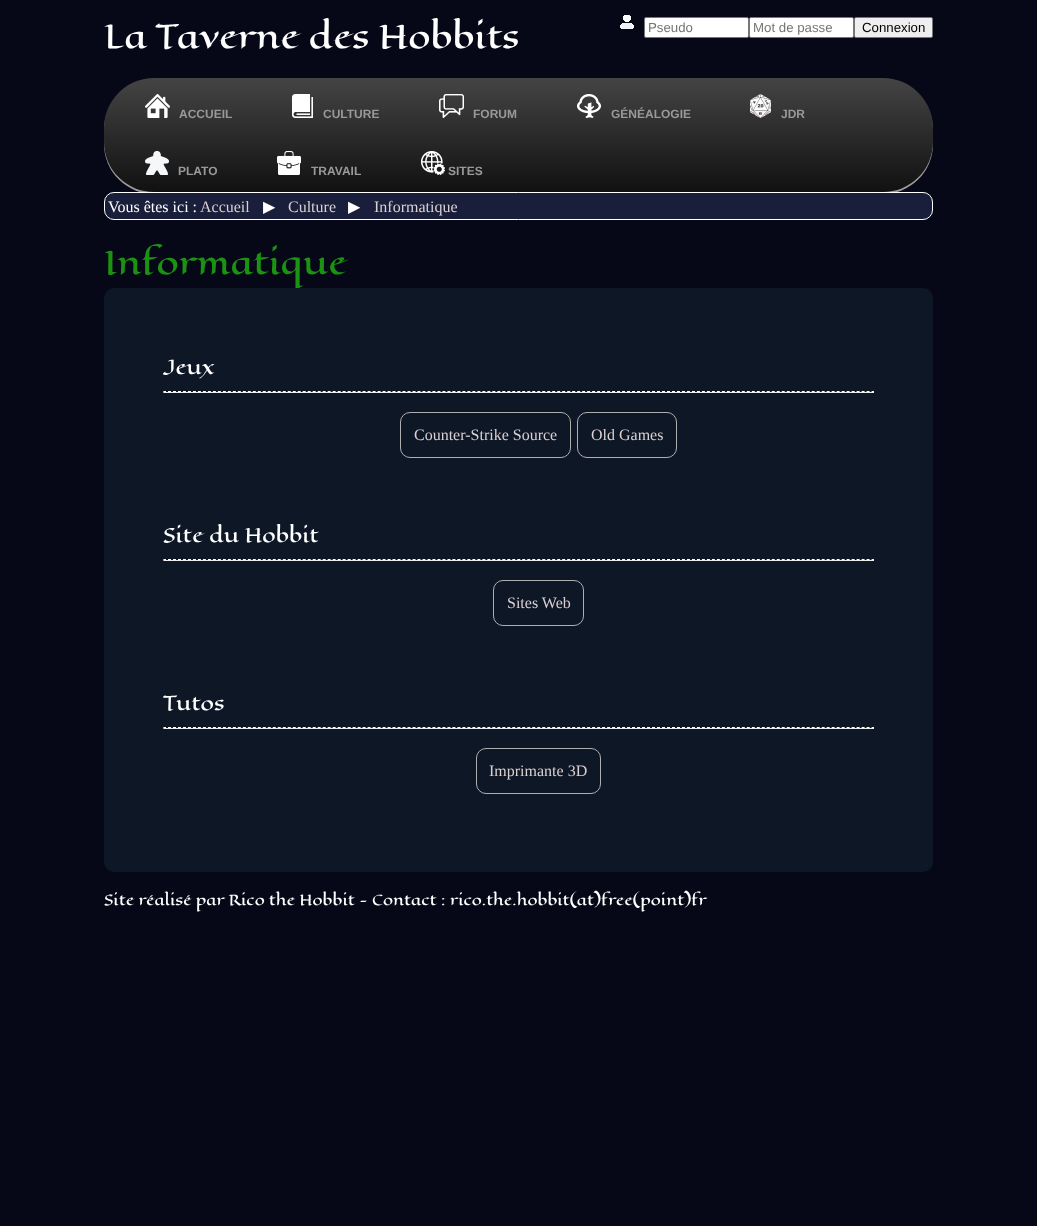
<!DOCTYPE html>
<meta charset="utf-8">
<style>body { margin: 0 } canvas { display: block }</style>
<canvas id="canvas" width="1037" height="1226"></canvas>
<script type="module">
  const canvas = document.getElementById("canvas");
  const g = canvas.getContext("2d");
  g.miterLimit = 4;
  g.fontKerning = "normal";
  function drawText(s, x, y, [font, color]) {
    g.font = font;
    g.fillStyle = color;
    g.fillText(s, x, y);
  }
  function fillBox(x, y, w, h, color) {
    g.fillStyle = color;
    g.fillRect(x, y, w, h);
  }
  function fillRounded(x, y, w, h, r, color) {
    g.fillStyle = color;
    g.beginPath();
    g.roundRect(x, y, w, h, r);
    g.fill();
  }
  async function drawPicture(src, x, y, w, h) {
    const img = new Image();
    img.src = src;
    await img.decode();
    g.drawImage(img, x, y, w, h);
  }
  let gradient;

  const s1 = ["32px Eagle Lake", "#FFFFFF"];
  const s2 = ["13.25px Liberation Sans", "#757575"];
  const s3 = ["13.25px Liberation Sans", "#000000"];
  const s4 = ["bold 12px Liberation Sans", "#999999"];
  const s5 = ["16px Liberation Serif", "#FFFFFF"];
  const s6 = ["16px Liberation Serif", "#DBD1D1"];
  const s7 = ["16px DejaVu Sans", "#FFFFFF"];
  const s8 = ["32px Eagle Lake", "#1B9212"];
  const s9 = ["19.25px Eagle Lake", "#FFFFFF"];
  const s10 = ["14.4px Eagle Lake", "#FFFFFF"];

  fillBox(0, 0, 1037, 1226, "#060818");
  drawText("La Taverne des Hobbits", 104, 48, s1);
  await drawPicture("pic1.png", 620, 15, 14, 14);
  g.beginPath();
  g.roundRect(644.5, 17.5, 104, 20, 1.5);
  g.fill();
  g.strokeStyle = "#767676";
  g.stroke();
  drawText("Pseudo", 648, 32, s2);
  g.fillStyle = "#FFFFFF";
  g.beginPath();
  g.roundRect(749.5, 17.5, 104, 20, 1.5);
  g.fill();
  g.stroke();
  drawText("Mot de passe", 753, 32, s2);
  g.fillStyle = "#EFEFEF";
  g.beginPath();
  g.roundRect(854.5, 17.5, 78, 20, 1.5);
  g.fill();
  g.stroke();
  drawText("Connexion", 862, 32, s3);
  g.fillStyle = "#9C9C9C";
  g.filter = "blur(0.5px)";
  g.beginPath();
  g.roundRect(104, 80, 829, 114, 50);
  g.fill();
  g.filter = "none";
  gradient = g.createLinearGradient(519, 78, 519, 192);
  gradient.addColorStop(0, "#444444");
  gradient.addColorStop(1, "#111111");
  g.fillStyle = gradient;
  g.beginPath();
  g.roundRect(104, 78, 829, 114, 50);
  g.fill();
  await drawPicture("pic2.png", 145, 94, 25, 24);
  drawText("ACCUEIL", 179, 118, s4);
  await drawPicture("pic3.png", 292, 94, 21, 24);
  drawText("CULTURE", 323, 118, s4);
  await drawPicture("pic4.png", 439, 94, 25, 24);
  drawText("FORUM", 473, 118, s4);
  await drawPicture("pic5.png", 577, 94, 24, 24);
  drawText("GÉNÉALOGIE", 611, 118, s4);
  await drawPicture("pic6.png", 750, 94, 21, 24);
  drawText("JDR", 781, 118, s4);
  await drawPicture("pic7.png", 145, 151, 24, 24);
  drawText("PLATO", 178, 175, s4);
  await drawPicture("pic8.png", 277, 151, 24, 24);
  drawText("TRAVAIL", 311, 175, s4);
  await drawPicture("pic9.png", 421, 151, 24, 24);
  drawText("SITES", 448, 175, s4);
  g.fillStyle = "#191E3A";
  g.beginPath();
  g.roundRect(104.5, 192.5, 828, 27, 9.5);
  g.fill();
  g.strokeStyle = "#FFFFFF";
  g.stroke();
  drawText("Vous êtes ici :", 108, 212, s5);
  drawText("Accueil", 200, 212, s6);
  drawText("▶", 263, 212, s7);
  drawText("Culture", 288, 212, s6);
  drawText("▶", 348, 212, s7);
  drawText("Informatique", 374, 212, s6);
  drawText("Informatique", 104, 274, s8);
  fillRounded(104, 288, 829, 584, 10, "#0E1726");
  drawText("Jeux", 163, 374, s9);
  g.beginPath();
  g.moveTo(163, 391.5);
  g.lineTo(874, 391.5);
  g.setLineDash([3, 1.99]);
  g.stroke();
  fillBox(873, 391, 1, 2, "#EEEEEE");
  fillBox(163, 392, 711, 1, "#EEEEEE");
  fillBox(163, 391, 1, 2, "#9F9F9F");
  g.beginPath();
  g.roundRect(400.5, 412.5, 170, 45, 9.5);
  g.strokeStyle = "#AFAFAF";
  g.setLineDash([]);
  g.stroke();
  drawText("Counter-Strike Source", 414, 440, s6);
  g.beginPath();
  g.roundRect(577.5, 412.5, 99, 45, 9.5);
  g.stroke();
  drawText("Old Games", 591, 440, s6);
  drawText("Site du Hobbit", 163, 542, s9);
  g.beginPath();
  g.moveTo(163, 559.5);
  g.lineTo(874, 559.5);
  g.strokeStyle = "#FFFFFF";
  g.setLineDash([3, 1.99]);
  g.stroke();
  fillBox(873, 559, 1, 2, "#EEEEEE");
  fillBox(163, 560, 711, 1, "#EEEEEE");
  fillBox(163, 559, 1, 2, "#9F9F9F");
  g.beginPath();
  g.roundRect(493.5, 580.5, 90, 45, 9.5);
  g.strokeStyle = "#AFAFAF";
  g.setLineDash([]);
  g.stroke();
  drawText("Sites Web", 507, 608, s6);
  drawText("Tutos", 163, 710, s9);
  g.beginPath();
  g.moveTo(163, 727.5);
  g.lineTo(874, 727.5);
  g.strokeStyle = "#FFFFFF";
  g.setLineDash([3, 1.99]);
  g.stroke();
  fillBox(873, 727, 1, 2, "#EEEEEE");
  fillBox(163, 728, 711, 1, "#EEEEEE");
  fillBox(163, 727, 1, 2, "#9F9F9F");
  g.beginPath();
  g.roundRect(476.5, 748.5, 124, 45, 9.5);
  g.strokeStyle = "#AFAFAF";
  g.setLineDash([]);
  g.stroke();
  drawText("Imprimante 3D", 489, 776, s6);
  drawText("Site réalisé par Rico the Hobbit - Contact : rico.the.hobbit(at)free(point)fr", 104, 905, s10);
</script>
